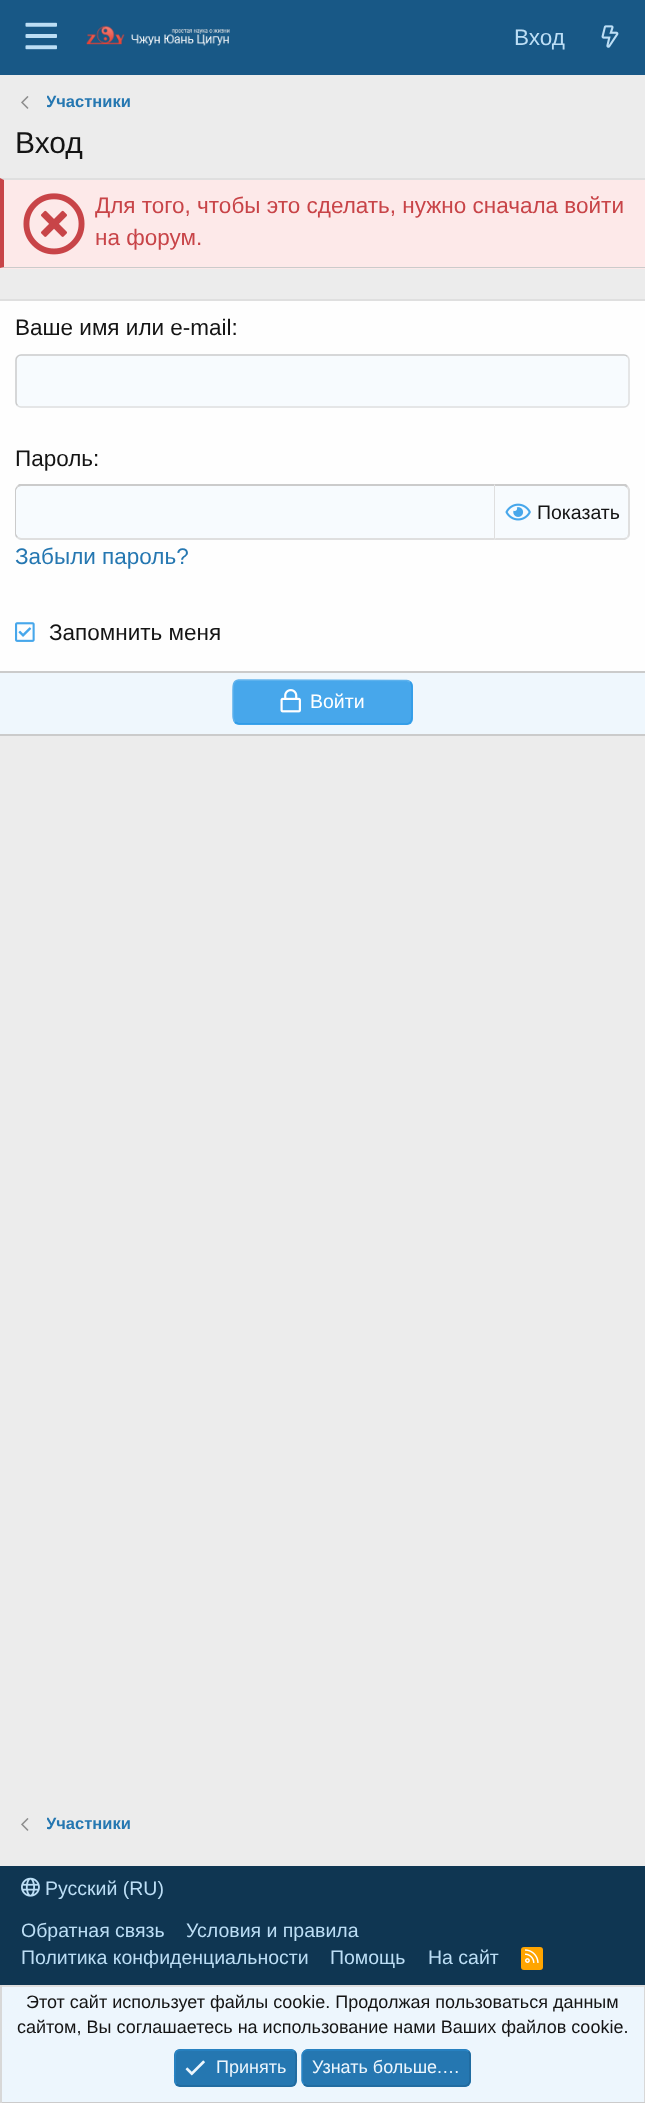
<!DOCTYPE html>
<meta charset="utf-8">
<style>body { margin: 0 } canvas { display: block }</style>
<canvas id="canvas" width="645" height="2103"></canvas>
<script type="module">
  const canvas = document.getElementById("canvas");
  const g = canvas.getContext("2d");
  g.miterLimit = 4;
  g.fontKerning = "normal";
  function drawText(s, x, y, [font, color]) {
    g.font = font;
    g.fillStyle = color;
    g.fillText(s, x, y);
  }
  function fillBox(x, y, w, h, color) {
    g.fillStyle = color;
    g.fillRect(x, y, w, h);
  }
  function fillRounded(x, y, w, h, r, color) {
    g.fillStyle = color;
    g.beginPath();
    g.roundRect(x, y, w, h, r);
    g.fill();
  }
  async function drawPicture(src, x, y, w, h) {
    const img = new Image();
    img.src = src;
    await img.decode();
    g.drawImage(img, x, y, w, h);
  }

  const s1 = ["22.5px Liberation Sans", "#BCDEF5"];
  const s2 = ["bold 16.5px Liberation Sans", "#2577B1"];
  const s3 = ["30px Liberation Sans", "#141414"];
  const s4 = ["22.5px Liberation Sans", "#C84448"];
  const s5 = ["22.5px Liberation Sans", "#141414"];
  const s6 = ["19.5px Liberation Sans", "#141414"];
  const s7 = ["22.5px Liberation Sans", "#2577B1"];
  const s8 = ["19.5px Liberation Sans", "#FFFFFF"];
  const s9 = ["19.5px Liberation Sans", "#BCDEF5"];
  const s10 = ["18px Liberation Sans", "#141414"];
  const s11 = ["18px Liberation Sans", "#EDF6FD"];

  fillBox(0, 0, 645, 2103, "#ECECEC");
  fillBox(0, 0, 645, 75, "#185886");
  await drawPicture("pic1.png", 25, 22, 32, 28);
  await drawPicture("pic2.png", 86, 25, 144, 21);
  drawText("Вход", 514, 45, s1);
  await drawPicture("pic3.png", 601, 25, 18, 23);
  await drawPicture("pic4.png", 21, 96, 8, 13);
  g.save();
  g.beginPath();
  g.rect(47, 90, 84, 24);
  g.clip();
  drawText("Участники", 46, 107, s2);
  g.restore();
  drawText("Вход", 15, 153, s3);
  fillBox(0, 179, 645, 90, "#FDE9E9");
  g.fillStyle = "#DFDFDF";
  g.beginPath();
  g.moveTo(0, 178);
  g.lineTo(645, 178);
  g.lineTo(645, 180);
  g.lineTo(4, 180);
  g.closePath();
  g.fill();
  g.fillStyle = "#CBCBCB";
  g.beginPath();
  g.moveTo(645, 268);
  g.lineTo(0, 268);
  g.lineTo(4, 267);
  g.lineTo(645, 267);
  g.closePath();
  g.fill();
  g.fillStyle = "#C84448";
  g.beginPath();
  g.moveTo(0, 268);
  g.lineTo(0, 178);
  g.lineTo(4, 180);
  g.lineTo(4, 267);
  g.closePath();
  g.fill();
  await drawPicture("pic5.png", 23, 193, 62, 62);
  drawText("Для того, чтобы это сделать, нужно сначала войти", 95, 213, s4);
  drawText("на форум.", 95, 245, s4);
  fillBox(0, 301, 645, 370, "#FEFEFE");
  fillBox(0, 299, 645, 2, "#DFDFDF");
  fillBox(0, 734, 645, 2, "#CBCBCB");
  drawText("Ваше имя или e-mail:", 15, 335, s5);
  fillRounded(15, 354, 615, 54, 6, "#F7FBFE");
  g.beginPath();
  g.moveTo(627.5, 356.5);
  g.bezierCurveTo(628.5, 357.5, 629, 358.5, 629, 360);
  g.lineTo(629, 402);
  g.bezierCurveTo(629, 403.5, 628.5, 404.5, 627.5, 405.5);
  g.bezierCurveTo(626.5, 406.5, 625.5, 407, 624, 407);
  g.lineTo(21, 407);
  g.bezierCurveTo(19.5, 407, 18.5, 406.5, 17.5, 405.5);
  g.strokeStyle = "#DFDFDF";
  g.lineWidth = 1.5;
  g.stroke();
  g.beginPath();
  g.moveTo(17.5, 405.5);
  g.bezierCurveTo(16.5, 404.5, 16, 403.5, 16, 402);
  g.lineTo(16, 360);
  g.bezierCurveTo(16, 358.5, 16.5, 357.5, 17.5, 356.5);
  g.bezierCurveTo(18.5, 355.5, 19.5, 355, 21, 355);
  g.lineTo(624, 355);
  g.bezierCurveTo(625.5, 355, 626.5, 355.5, 627.5, 356.5);
  g.strokeStyle = "#CBCBCB";
  g.stroke();
  drawText("Пароль:", 15, 466, s5);
  g.fillStyle = "#F7FBFE";
  g.beginPath();
  g.roundRect(15, 485, 479, 55, [6, 0, 0, 6]);
  g.fill();
  g.fillStyle = "#CBCBCB";
  g.beginPath();
  g.moveTo(21, 486);
  g.lineTo(18, 487);
  g.lineTo(17, 486);
  g.lineTo(19, 484);
  g.lineTo(494, 484);
  g.lineTo(494, 486);
  g.closePath();
  g.fill();
  g.fillStyle = "#DFDFDF";
  g.beginPath();
  g.moveTo(494, 540);
  g.lineTo(494, 538);
  g.lineTo(21, 538);
  g.lineTo(18, 537);
  g.lineTo(17, 538);
  g.bezierCurveTo(18, 539, 20, 540, 21, 540);
  g.closePath();
  g.fill();
  g.fillStyle = "#CBCBCB";
  g.beginPath();
  g.moveTo(15, 490);
  g.lineTo(15, 534);
  g.bezierCurveTo(15, 536, 16, 537, 17, 538);
  g.lineTo(18, 537);
  g.lineTo(16, 534);
  g.lineTo(16, 490);
  g.lineTo(18, 487);
  g.lineTo(17, 486);
  g.bezierCurveTo(16, 487, 15, 489, 15, 490);
  g.closePath();
  g.fill();
  g.fillStyle = "#F7FBFE";
  g.beginPath();
  g.roundRect(494, 485, 136, 55, [0, 6, 6, 0]);
  g.fill();
  g.fillStyle = "#CBCBCB";
  g.beginPath();
  g.moveTo(495, 486);
  g.lineTo(494, 484);
  g.lineTo(626, 484);
  g.lineTo(628, 486);
  g.lineTo(627, 488);
  g.bezierCurveTo(626, 487, 625, 486, 624, 486);
  g.closePath();
  g.fill();
  g.fillStyle = "#DFDFDF";
  g.beginPath();
  g.moveTo(630, 534);
  g.lineTo(630, 490);
  g.bezierCurveTo(630, 489, 629, 487, 628, 486);
  g.lineTo(627, 488);
  g.lineTo(628, 490);
  g.lineTo(628, 534);
  g.lineTo(627, 537);
  g.lineTo(628, 538);
  g.bezierCurveTo(629, 537, 630, 536, 630, 534);
  g.closePath();
  g.fill();
  g.beginPath();
  g.moveTo(494, 540);
  g.lineTo(625, 540);
  g.lineTo(628, 538);
  g.lineTo(627, 537);
  g.lineTo(624, 538);
  g.lineTo(496, 538);
  g.closePath();
  g.fill();
  g.beginPath();
  g.moveTo(495, 486);
  g.lineTo(495, 538);
  g.lineTo(496, 538);
  g.lineTo(494, 540);
  g.lineTo(494, 485);
  g.closePath();
  g.fill();
  await drawPicture("pic6.png", 505, 503, 26, 18);
  drawText("Показать", 537, 519, s6);
  drawText("Забыли пароль?", 15, 564, s7);
  await drawPicture("pic7.png", 15, 622, 20, 20);
  drawText("Запомнить меня", 49, 640, s5);
  fillBox(0, 673, 645, 61, "#EFF7FD");
  fillBox(0, 671, 645, 2, "#CBCBCB");
  fillRounded(233, 680, 180, 45, 6, "#47A7EB");
  g.beginPath();
  g.moveTo(410, 682);
  g.bezierCurveTo(412.5, 684, 412, 688, 412, 691);
  g.lineTo(412, 713);
  g.bezierCurveTo(412, 717, 412.5, 723.5, 406.5, 724);
  g.lineTo(238, 723.5);
  g.lineTo(235, 722);
  g.strokeStyle = "#309CE8";
  g.stroke();
  g.beginPath();
  g.moveTo(235, 722);
  g.bezierCurveTo(232.5, 720, 233, 716, 233, 713);
  g.lineTo(233, 691);
  g.bezierCurveTo(233, 687, 232.5, 680.5, 238.5, 680);
  g.lineTo(407, 680.5);
  g.lineTo(410, 682);
  g.strokeStyle = "#5EB2ED";
  g.stroke();
  await drawPicture("pic8.png", 280, 689, 21, 24);
  drawText("Войти", 310, 708, s8);
  await drawPicture("pic4.png", 21, 1818, 8, 13);
  g.save();
  g.beginPath();
  g.rect(47, 1812, 84, 24);
  g.clip();
  drawText("Участники", 46, 1829, s2);
  g.restore();
  fillBox(0, 1866, 645, 119, "#0F3652");
  await drawPicture("pic9.png", 21, 1877, 19, 20);
  drawText("Русский (RU)", 45, 1895, s9);
  drawText("Обратная связь", 21, 1937, s9);
  drawText("Условия и правила", 186, 1937, s9);
  drawText("Политика конфиденциальности", 21, 1964, s9);
  drawText("Помощь", 330, 1964, s9);
  drawText("На сайт", 428, 1964, s9);
  fillRounded(521, 1947, 22, 23, 3, "#FFA500");
  await drawPicture("pic10.png", 525, 1949, 14, 14);
  fillBox(2, 1987, 642, 115, "#EDF6FD");
  fillBox(0, 1985, 645, 2, "#DFDFDF");
  fillBox(644, 1985, 1, 118, "#D8D8D8");
  fillBox(0, 2102, 645, 1, "#CBCBCB");
  fillBox(0, 1985, 2, 118, "#D8D8D8");
  drawText("Этот сайт использует файлы cookie. Продолжая пользоваться данным", 26, 2008, s10);
  drawText("сайтом, Вы соглашаетесь на использование нами Ваших файлов cookie.", 17, 2033, s10);
  fillRounded(174, 2049, 123, 38, 6, "#2577B1");
  g.beginPath();
  g.moveTo(294.5, 2051.5);
  g.bezierCurveTo(297.5, 2054, 296, 2064, 296, 2068);
  g.bezierCurveTo(296, 2090, 297.5, 2086, 272.5, 2086);
  g.lineTo(180, 2086);
  g.bezierCurveTo(178.5, 2085.5, 177.5, 2085, 176.5, 2084);
  g.strokeStyle = "#21699C";
  g.stroke();
  g.beginPath();
  g.moveTo(176.5, 2084);
  g.bezierCurveTo(173.5, 2081.5, 175, 2071.5, 175, 2068);
  g.bezierCurveTo(175, 2045.5, 173.5, 2050, 198.5, 2050);
  g.lineTo(291, 2050);
  g.bezierCurveTo(292.5, 2050, 293.5, 2050.5, 294.5, 2051.5);
  g.strokeStyle = "#2985C6";
  g.stroke();
  await drawPicture("pic11.png", 185, 2060, 20, 16);
  drawText("Принять", 216, 2073, s11);
  fillRounded(302, 2049, 169, 38, 6, "#2577B1");
  g.beginPath();
  g.moveTo(468.5, 2051.5);
  g.bezierCurveTo(469.5, 2052.5, 470, 2053.5, 470, 2055);
  g.lineTo(470, 2080.5);
  g.bezierCurveTo(470, 2082, 469.5, 2083, 468.5, 2084);
  g.bezierCurveTo(467.5, 2085, 466.5, 2086, 465, 2086);
  g.lineTo(307.5, 2086);
  g.bezierCurveTo(306, 2086, 305, 2085, 304, 2084);
  g.strokeStyle = "#21699C";
  g.stroke();
  g.beginPath();
  g.moveTo(304, 2084);
  g.bezierCurveTo(303, 2083, 302, 2082, 302, 2080.5);
  g.lineTo(302, 2055);
  g.bezierCurveTo(302, 2053.5, 303, 2052.5, 304, 2051.5);
  g.bezierCurveTo(305, 2050.5, 306, 2050, 307.5, 2050);
  g.lineTo(465, 2050);
  g.bezierCurveTo(466.5, 2050, 467.5, 2050.5, 468.5, 2051.5);
  g.strokeStyle = "#2985C6";
  g.stroke();
  drawText("Узнать больше.…", 312, 2073, s11);
</script>
